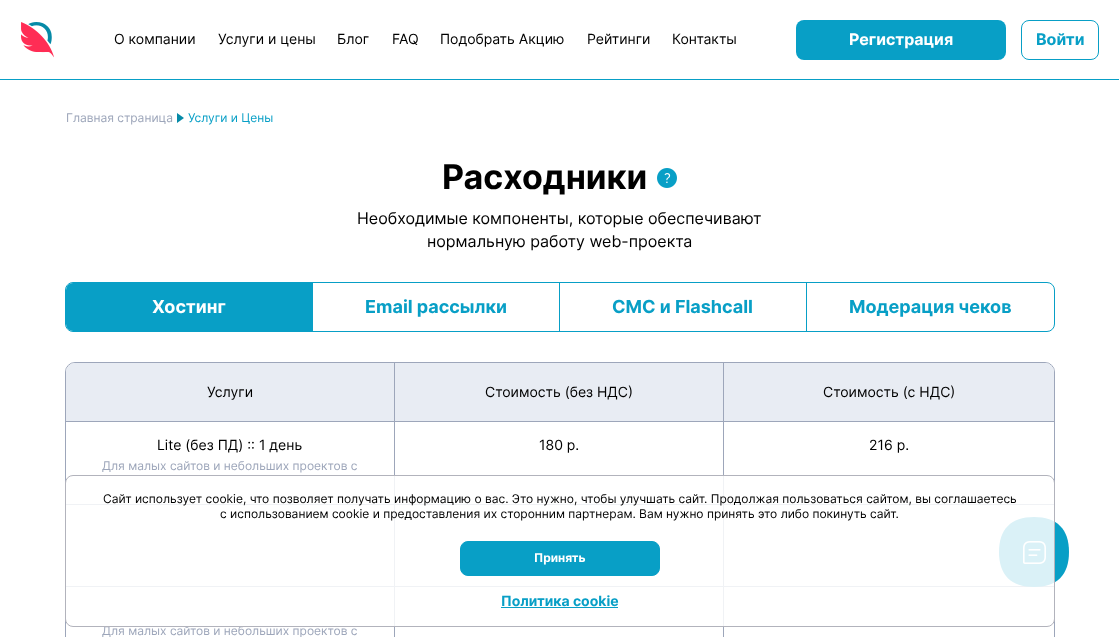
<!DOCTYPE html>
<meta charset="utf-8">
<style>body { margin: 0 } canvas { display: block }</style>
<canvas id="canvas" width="1119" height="637"></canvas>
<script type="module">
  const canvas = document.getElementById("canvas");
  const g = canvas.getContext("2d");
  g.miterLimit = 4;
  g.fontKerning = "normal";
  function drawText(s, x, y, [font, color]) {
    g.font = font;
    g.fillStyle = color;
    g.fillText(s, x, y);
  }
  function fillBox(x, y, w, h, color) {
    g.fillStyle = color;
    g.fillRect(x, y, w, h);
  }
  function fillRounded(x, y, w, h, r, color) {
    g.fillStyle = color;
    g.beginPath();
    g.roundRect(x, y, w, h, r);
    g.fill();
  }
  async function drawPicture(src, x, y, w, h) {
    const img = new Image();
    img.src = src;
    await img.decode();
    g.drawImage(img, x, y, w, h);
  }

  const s1 = ["14px Inter", "#000000"];
  const s2 = ["bold 16px Inter", "#FFFFFF"];
  const s3 = ["bold 16px Inter", "#089FC6"];
  const s4 = ["12px Inter", "#9DA6BA"];
  const s5 = ["12px Inter", "#089FC6"];
  const s6 = ["bold 34px Inter", "#000000"];
  const s7 = ["16px Inter", "#000000"];
  const s8 = ["bold 18px Inter", "#FFFFFF"];
  const s9 = ["bold 18px Inter", "#089FC6"];
  const s10 = ["12px Inter", "#000000"];
  const s11 = ["bold 12px Inter", "#FFFFFF"];
  const s12 = ["bold 14px Inter", "#089FC6"];

  fillBox(0, 0, 1119, 637, "#FFFFFF");
  fillBox(0, 79, 1119, 1, "#089FC6");
  await drawPicture("pic1.png", 21, 22, 33, 36);
  drawText("О компании", 114, 44, s1);
  drawText("Услуги и цены", 218, 44, s1);
  drawText("Блог", 337, 44, s1);
  drawText("FAQ", 392, 44, s1);
  drawText("Подобрать Акцию", 440, 44, s1);
  drawText("Рейтинги", 587, 44, s1);
  drawText("Контакты", 672, 44, s1);
  fillRounded(796, 20, 210, 40, 8, "#089FC6");
  drawText("Регистрация", 849, 45, s2);
  g.beginPath();
  g.roundRect(1021.5, 20.5, 77, 39, 7.5);
  g.strokeStyle = "#089FC6";
  g.stroke();
  drawText("Войти", 1036, 45, s3);
  drawText("Главная страница", 66, 122, s4);
  g.fillStyle = "#068AA7";
  g.beginPath();
  g.moveTo(177, 123);
  g.lineTo(177, 113);
  g.lineTo(184, 118);
  g.closePath();
  g.fill();
  drawText("Услуги и Цены", 188, 122, s5);
  drawText("Расходники", 442, 189, s6);
  await drawPicture("pic2.png", 657, 168, 20, 20);
  drawText("Необходимые компоненты, которые обеспечивают", 357, 224, s7);
  drawText("нормальную работу web-проекта", 427, 247, s7);
  g.beginPath();
  g.roundRect(65.5, 282.5, 989, 49, 7.5);
  g.stroke();
  fillBox(312, 283, 1, 48, "#089FC6");
  g.beginPath();
  g.roundRect(66, 283, 246, 48, [7, 0, 0, 7]);
  g.fill();
  drawText("Хостинг", 152, 313, s8);
  fillBox(559, 283, 1, 48, "#089FC6");
  drawText("Email рассылки", 365, 313, s9);
  fillBox(806, 283, 1, 48, "#089FC6");
  drawText("СМС и Flashcall", 612, 313, s9);
  drawText("Модерация чеков", 849, 313, s9);
  g.beginPath();
  g.roundRect(65.5, 362.5, 989, 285, 9.5);
  g.strokeStyle = "#9DA6BA";
  g.stroke();
  g.fillStyle = "#E8ECF3";
  g.beginPath();
  g.roundRect(66, 363, 988, 58, [9, 9, 0, 0]);
  g.fill();
  fillBox(394, 363, 1, 58, "#9DA6BA");
  drawText("Услуги", 207, 397, s1);
  fillBox(723, 363, 1, 58, "#9DA6BA");
  drawText("Стоимость (без НДС)", 485, 397, s1);
  drawText("Стоимость (с НДС)", 823, 397, s1);
  fillBox(66, 421, 988, 1, "#9DA6BA");
  fillBox(394, 422, 1, 82, "#9DA6BA");
  drawText("Lite (без ПД) :: 1 день", 157, 450, s1);
  drawText("Для малых сайтов и небольших проектов с", 102, 470, s4);
  fillBox(723, 422, 1, 82, "#9DA6BA");
  drawText("180 р.", 539, 450, s1);
  drawText("216 р.", 869, 450, s1);
  fillBox(66, 504, 988, 1, "#9DA6BA");
  fillBox(394, 505, 1, 81, "#9DA6BA");
  fillBox(723, 505, 1, 81, "#9DA6BA");
  fillBox(66, 586, 988, 1, "#9DA6BA");
  fillBox(394, 587, 1, 50, "#9DA6BA");
  drawText("Для малых сайтов и небольших проектов с", 102, 635, s4);
  fillBox(723, 587, 1, 50, "#9DA6BA");
  g.fillStyle = "#089FC6";
  g.beginPath();
  g.moveTo(1069, 552);
  g.bezierCurveTo(1069, 575, 1057, 587, 1034, 587);
  g.bezierCurveTo(1011, 587, 999, 575, 999, 552);
  g.bezierCurveTo(999, 529, 1011, 517, 1034, 517);
  g.bezierCurveTo(1057, 517, 1069, 529, 1069, 552);
  g.closePath();
  g.fill();
  await drawPicture("pic3.png", 1023, 541, 23, 23);
  g.fillStyle = "rgba(255, 255, 255, 0.85)";
  g.beginPath();
  g.roundRect(65.5, 475.5, 989, 151, 7.5);
  g.fill();
  g.strokeStyle = "#B2B3BC";
  g.stroke();
  drawText("Сайт использует cookie, что позволяет получать информацию о вас. Это нужно, чтобы улучшать сайт. Продолжая пользоваться сайтом, вы соглашаетесь", 103, 503, s10);
  drawText("с использованием cookie и предоставления их сторонним партнерам. Вам нужно принять это либо покинуть сайт.", 220, 518, s10);
  g.fillStyle = "#089FC6";
  g.beginPath();
  g.roundRect(460.5, 541.5, 199, 34, 7.5);
  g.fill();
  g.strokeStyle = "#089FC6";
  g.stroke();
  drawText("Принять", 534, 562, s11);
  drawText("Политика cookie", 501, 606, s12);
  fillBox(501, 607, 117, 1, "#089FC6");
</script>
